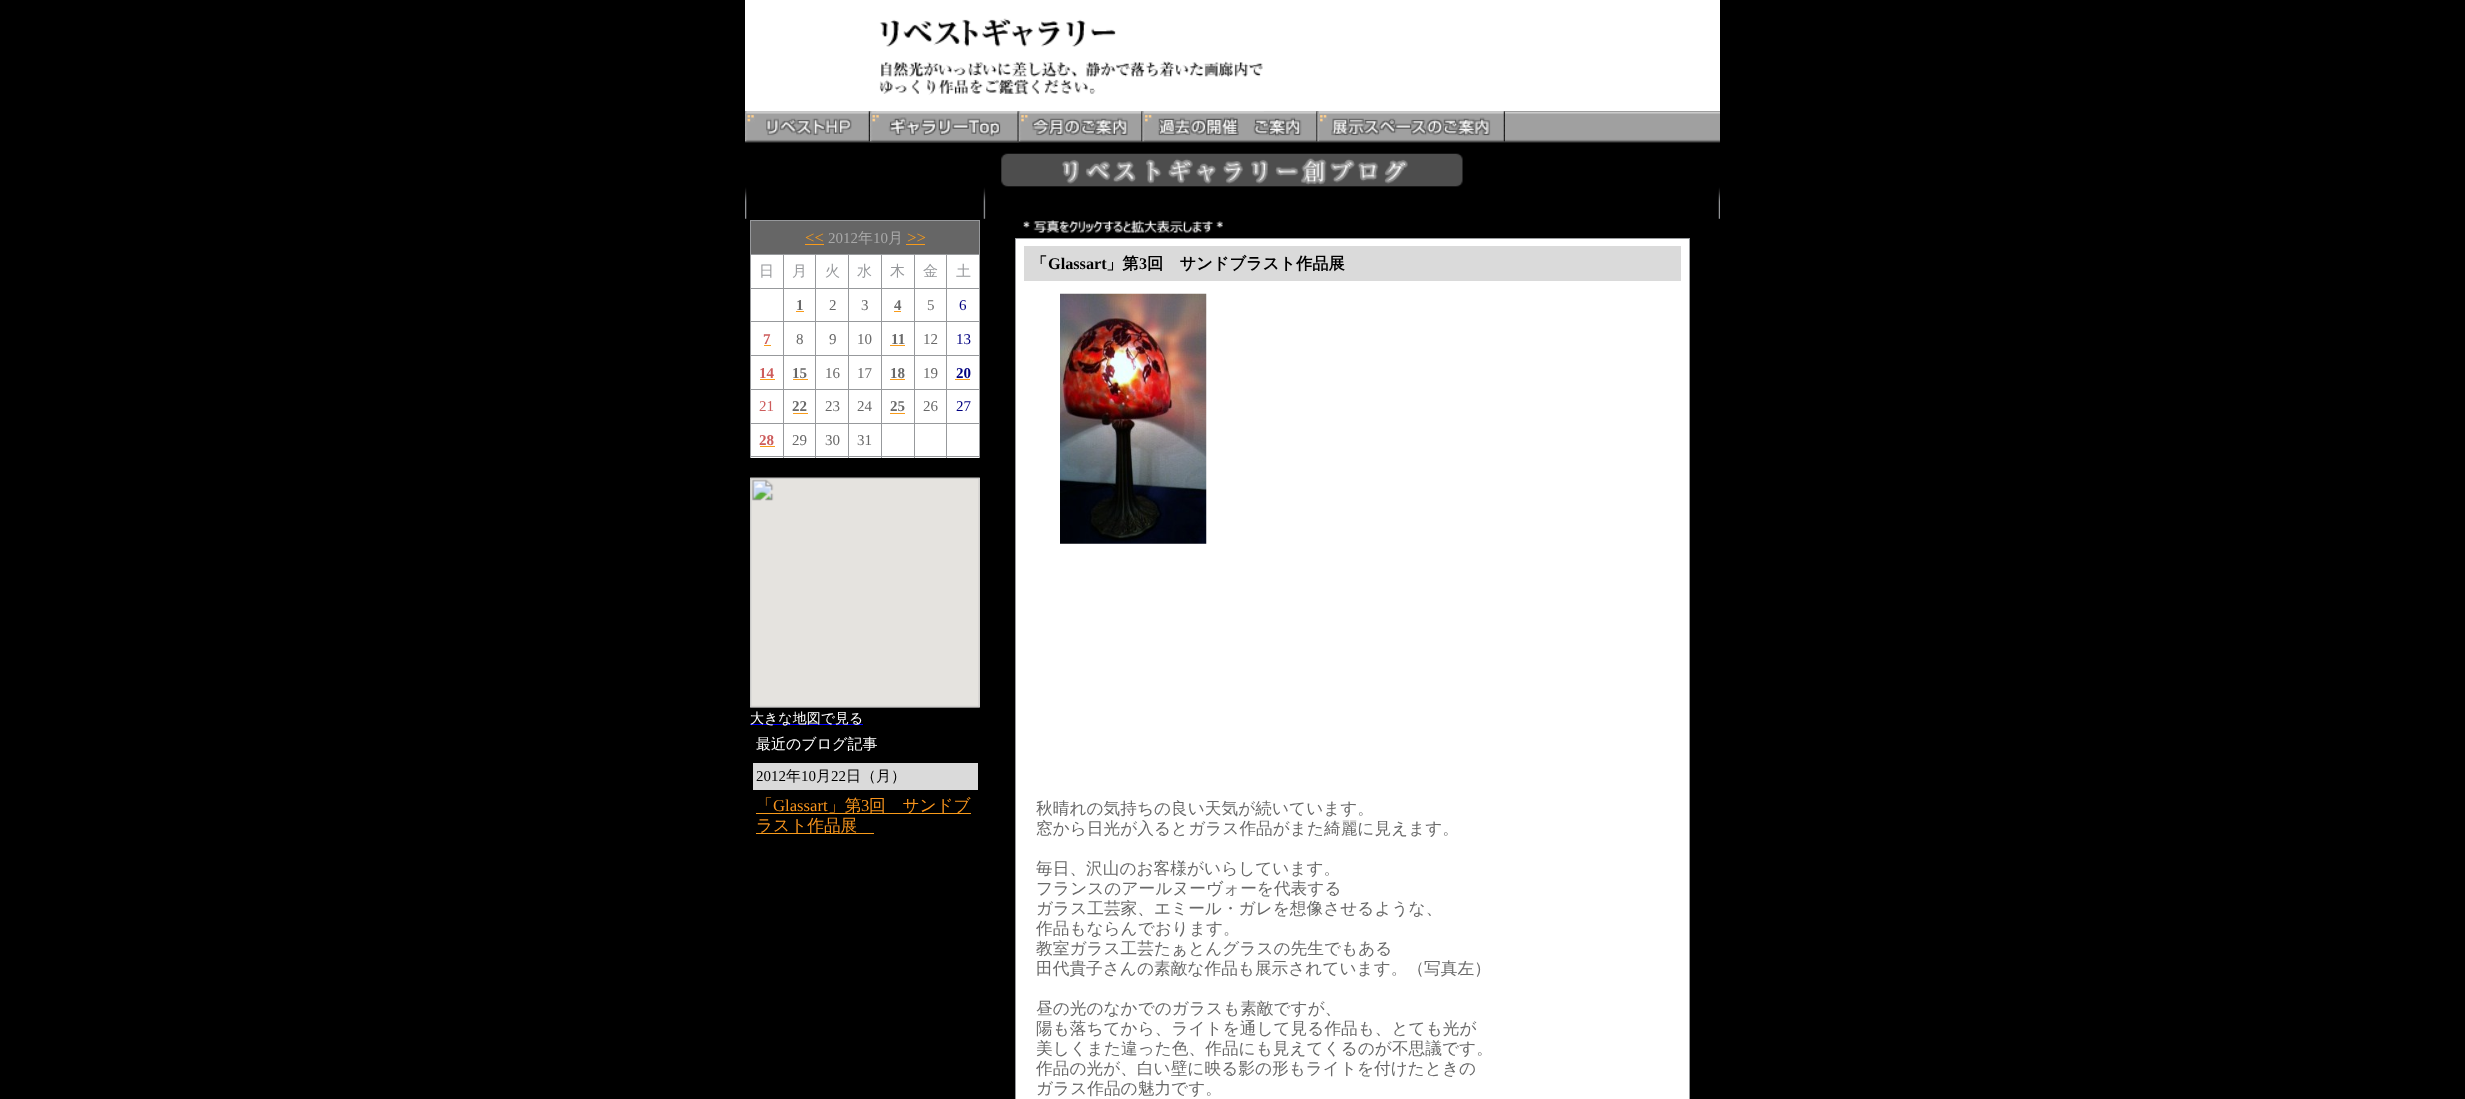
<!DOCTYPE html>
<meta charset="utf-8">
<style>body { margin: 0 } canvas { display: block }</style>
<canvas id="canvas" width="2465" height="1099"></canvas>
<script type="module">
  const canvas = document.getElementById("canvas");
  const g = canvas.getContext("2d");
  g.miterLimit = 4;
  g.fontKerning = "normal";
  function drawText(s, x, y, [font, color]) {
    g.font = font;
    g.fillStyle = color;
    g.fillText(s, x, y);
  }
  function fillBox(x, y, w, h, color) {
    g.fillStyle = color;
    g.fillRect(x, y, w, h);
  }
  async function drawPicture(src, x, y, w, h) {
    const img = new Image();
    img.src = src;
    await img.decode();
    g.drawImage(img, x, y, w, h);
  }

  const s1 = ["16.7px Liberation Serif", "#F89B1A"];
  const s2 = ["15px Liberation Serif", "#A9A9A9"];
  const s3 = ["500 15px WenQuanYi Zen Hei", "#A9A9A9"];
  const s4 = ["500 15px WenQuanYi Zen Hei", "#97999C"];
  const s5 = ["bold 15px Liberation Serif", "#696969"];
  const s6 = ["15px Liberation Serif", "#696969"];
  const s7 = ["15px Liberation Serif", "#000080"];
  const s8 = ["bold 15px Liberation Serif", "#CD5C5C"];
  const s9 = ["bold 15px Liberation Serif", "#000080"];
  const s10 = ["15px Liberation Serif", "#CD5C5C"];
  const s11 = ["500 14px WenQuanYi Zen Hei", "#FFFFFF"];
  const s12 = ["500 15px WenQuanYi Zen Hei", "#FFFFFF"];
  const s13 = ["15px Liberation Serif", "#000000"];
  const s14 = ["500 15px WenQuanYi Zen Hei", "#000000"];
  const s15 = ["500 16.7px WenQuanYi Zen Hei", "#F7941D"];
  const s16 = ["16.7px Liberation Serif", "#F7941D"];
  const s17 = ["bold 16.25px WenQuanYi Zen Hei", "#000000"];
  const s18 = ["bold 16.25px Liberation Serif", "#000000"];
  const s19 = ["500 16.7px WenQuanYi Zen Hei", "#696969"];

  fillBox(0, 0, 2465, 1099, "#000000");
  fillBox(745, 0, 975, 111, "#FFFFFF");
  await drawPicture("pic2.png", 745, 111, 975, 32);
  await drawPicture("pic1.png", 876, 18, 388, 94);
  await drawPicture("pic3.png", 745, 111, 125, 31);
  await drawPicture("pic4.png", 870, 111, 149, 32);
  await drawPicture("pic5.png", 1018, 111, 125, 31);
  await drawPicture("pic6.png", 1142, 111, 176, 31);
  await drawPicture("pic7.png", 1317, 111, 188, 31);
  await drawPicture("pic8.png", 745, 153, 975, 66);
  fillBox(751, 255, 228, 203, "#FFFFFF");
  fillBox(750, 220, 230, 1, "#97999C");
  fillBox(979, 220, 1, 238, "#97999C");
  fillBox(750, 456, 230, 1, "#97999C");
  fillBox(750, 220, 1, 238, "#97999C");
  fillBox(751, 221, 228, 33, "#666666");
  drawText("<<", 805, 243, s1);
  fillBox(805, 244, 19, 1, "#F89B1A");
  drawText("2012", 828, 243, s2);
  drawText("年", 858, 243, s3);
  drawText("10", 873, 243, s2);
  drawText("月", 888, 243, s3);
  drawText(">>", 907, 243, s1);
  fillBox(906, 244, 19, 1, "#F89B1A");
  fillBox(946, 254, 34, 1, "#97999C");
  fillBox(946, 288, 34, 1, "#97999C");
  fillBox(946, 321, 34, 1, "#97999C");
  fillBox(946, 355, 34, 1, "#97999C");
  fillBox(946, 389, 34, 1, "#97999C");
  fillBox(946, 423, 34, 1, "#97999C");
  fillBox(946, 423, 1, 35, "#97999C");
  fillBox(914, 423, 34, 1, "#97999C");
  fillBox(946, 389, 1, 35, "#97999C");
  fillBox(914, 389, 34, 1, "#97999C");
  fillBox(946, 355, 1, 35, "#97999C");
  fillBox(914, 355, 34, 1, "#97999C");
  fillBox(946, 321, 1, 35, "#97999C");
  fillBox(914, 321, 34, 1, "#97999C");
  fillBox(946, 288, 1, 35, "#97999C");
  fillBox(914, 288, 34, 1, "#97999C");
  fillBox(946, 254, 1, 35, "#97999C");
  fillBox(914, 254, 34, 1, "#97999C");
  fillBox(914, 423, 1, 35, "#97999C");
  fillBox(881, 423, 34, 1, "#97999C");
  fillBox(914, 389, 1, 35, "#97999C");
  fillBox(881, 389, 34, 1, "#97999C");
  fillBox(914, 355, 1, 35, "#97999C");
  fillBox(881, 355, 34, 1, "#97999C");
  fillBox(914, 321, 1, 35, "#97999C");
  fillBox(881, 321, 34, 1, "#97999C");
  fillBox(914, 288, 1, 35, "#97999C");
  fillBox(881, 288, 34, 1, "#97999C");
  fillBox(914, 254, 1, 35, "#97999C");
  fillBox(881, 254, 34, 1, "#97999C");
  fillBox(881, 423, 1, 35, "#97999C");
  fillBox(848, 423, 35, 1, "#97999C");
  fillBox(881, 389, 1, 35, "#97999C");
  fillBox(848, 389, 35, 1, "#97999C");
  fillBox(881, 355, 1, 35, "#97999C");
  fillBox(848, 355, 35, 1, "#97999C");
  fillBox(881, 321, 1, 35, "#97999C");
  fillBox(848, 321, 35, 1, "#97999C");
  fillBox(881, 288, 1, 35, "#97999C");
  fillBox(848, 288, 35, 1, "#97999C");
  fillBox(881, 254, 1, 35, "#97999C");
  fillBox(848, 254, 35, 1, "#97999C");
  fillBox(848, 423, 1, 35, "#97999C");
  fillBox(815, 423, 34, 1, "#97999C");
  fillBox(848, 389, 1, 35, "#97999C");
  fillBox(815, 389, 34, 1, "#97999C");
  fillBox(848, 355, 1, 35, "#97999C");
  fillBox(815, 355, 34, 1, "#97999C");
  fillBox(848, 321, 1, 35, "#97999C");
  fillBox(815, 321, 34, 1, "#97999C");
  fillBox(848, 288, 1, 35, "#97999C");
  fillBox(815, 288, 34, 1, "#97999C");
  fillBox(848, 254, 1, 35, "#97999C");
  fillBox(815, 254, 34, 1, "#97999C");
  fillBox(815, 423, 1, 35, "#97999C");
  fillBox(783, 423, 33, 1, "#97999C");
  fillBox(815, 389, 1, 35, "#97999C");
  fillBox(783, 389, 33, 1, "#97999C");
  fillBox(815, 355, 1, 35, "#97999C");
  fillBox(783, 355, 33, 1, "#97999C");
  fillBox(815, 321, 1, 35, "#97999C");
  fillBox(783, 321, 33, 1, "#97999C");
  fillBox(815, 288, 1, 35, "#97999C");
  fillBox(783, 288, 33, 1, "#97999C");
  fillBox(815, 254, 1, 35, "#97999C");
  fillBox(783, 254, 33, 1, "#97999C");
  fillBox(783, 423, 1, 35, "#97999C");
  fillBox(750, 423, 34, 1, "#97999C");
  fillBox(783, 389, 1, 35, "#97999C");
  fillBox(750, 389, 34, 1, "#97999C");
  fillBox(783, 355, 1, 35, "#97999C");
  fillBox(750, 355, 34, 1, "#97999C");
  fillBox(783, 321, 1, 35, "#97999C");
  fillBox(750, 321, 34, 1, "#97999C");
  fillBox(783, 288, 1, 35, "#97999C");
  fillBox(750, 288, 34, 1, "#97999C");
  fillBox(783, 254, 1, 35, "#97999C");
  fillBox(750, 254, 34, 1, "#97999C");
  drawText("日", 759, 276, s4);
  drawText("月", 792, 276, s4);
  drawText("火", 825, 276, s4);
  drawText("水", 857, 276, s4);
  drawText("木", 890, 276, s4);
  drawText("金", 923, 276, s4);
  drawText("土", 956, 276, s4);
  drawText("1", 796, 310, s5);
  fillBox(796, 311, 8, 1, "#F89B1A");
  drawText("2", 829, 310, s6);
  drawText("3", 861, 310, s6);
  drawText("4", 894, 310, s5);
  fillBox(894, 311, 7, 1, "#F89B1A");
  drawText("5", 927, 310, s6);
  drawText("6", 959, 310, s7);
  drawText("7", 763, 344, s8);
  fillBox(764, 345, 7, 1, "#F89B1A");
  drawText("8", 796, 344, s6);
  drawText("9", 829, 344, s6);
  drawText("10", 857, 344, s6);
  drawText("11", 891, 344, s5);
  fillBox(890, 345, 15, 1, "#F89B1A");
  drawText("12", 923, 344, s6);
  drawText("13", 956, 344, s7);
  drawText("14", 759, 378, s8);
  fillBox(760, 379, 15, 1, "#F89B1A");
  drawText("15", 792, 378, s5);
  fillBox(793, 379, 15, 1, "#F89B1A");
  drawText("16", 825, 378, s6);
  drawText("17", 857, 378, s6);
  drawText("18", 890, 378, s5);
  fillBox(890, 379, 15, 1, "#F89B1A");
  drawText("19", 923, 378, s6);
  drawText("20", 956, 378, s9);
  fillBox(955, 379, 15, 1, "#F89B1A");
  drawText("21", 759, 411, s10);
  drawText("22", 792, 411, s5);
  fillBox(793, 413, 15, 1, "#F89B1A");
  drawText("23", 825, 411, s6);
  drawText("24", 857, 411, s6);
  drawText("25", 890, 411, s5);
  fillBox(890, 413, 15, 1, "#F89B1A");
  drawText("26", 923, 411, s6);
  drawText("27", 956, 411, s7);
  drawText("28", 759, 445, s8);
  fillBox(760, 446, 15, 1, "#F89B1A");
  drawText("29", 792, 445, s6);
  drawText("30", 825, 445, s6);
  drawText("31", 857, 445, s6);
  await drawPicture("pic9.png", 750, 477, 230, 231);
  fillBox(750, 724, 113, 1, "#0000FF");
  drawText("大きな地図で見る", 750, 723, s11);
  drawText("最近のブログ記事", 756, 749, s12);
  fillBox(753, 763, 225, 27, "#DADADA");
  drawText("2012", 756, 781, s13);
  drawText("年", 786, 781, s14);
  drawText("10", 801, 781, s13);
  drawText("月", 816, 781, s14);
  drawText("22", 831, 781, s13);
  drawText("日（月）", 846, 781, s14);
  drawText("「", 756, 811, s15);
  drawText("Glassart", 773, 811, s16);
  fillBox(756, 813, 215, 1, "#F89B1A");
  drawText("」第", 828, 811, s15);
  drawText("3", 861, 811, s16);
  drawText("回　サンドブ", 869, 811, s15);
  fillBox(756, 833, 118, 1, "#F89B1A");
  drawText("ラスト作品展", 756, 831, s15);
  await drawPicture("pic10.png", 1023, 220, 200, 13);
  fillBox(1016, 239, 673, 860, "#FFFFFF");
  fillBox(1015, 238, 675, 1, "#97999C");
  fillBox(1689, 238, 1, 861, "#97999C");
  fillBox(1015, 238, 1, 861, "#97999C");
  fillBox(1024, 246, 657, 35, "#DADADA");
  drawText("「", 1031, 269, s17);
  drawText("Glassart", 1048, 269, s18);
  drawText("」第", 1106, 269, s17);
  drawText("3", 1139, 269, s18);
  drawText("回　サンドブラスト作品展", 1147, 269, s17);
  await drawPicture("pic11.png", 1060, 293, 147, 251);
  drawText("秋晴れの気持ちの良い天気が続いています。", 1036, 814, s19);
  drawText("窓から日光が入るとガラス作品がまた綺麗に見えます。", 1036, 834, s19);
  drawText("毎日、沢山のお客様がいらしています。", 1036, 874, s19);
  drawText("フランスのアールヌーヴォーを代表する", 1036, 894, s19);
  drawText("ガラス工芸家、エミール・ガレを想像させるような、", 1036, 914, s19);
  drawText("作品もならんでおります。", 1036, 934, s19);
  drawText("教室ガラス工芸たぁとんグラスの先生でもある", 1036, 954, s19);
  drawText("田代貴子さんの素敵な作品も展示されています。（写真左）", 1036, 974, s19);
  drawText("昼の光のなかでのガラスも素敵ですが、", 1036, 1014, s19);
  drawText("陽も落ちてから、ライトを通して見る作品も、とても光が", 1036, 1034, s19);
  drawText("美しくまた違った色、作品にも見えてくるのが不思議です。", 1036, 1054, s19);
  drawText("作品の光が、白い壁に映る影の形もライトを付けたときの", 1036, 1074, s19);
  drawText("ガラス作品の魅力です。", 1036, 1094, s19);
</script>
